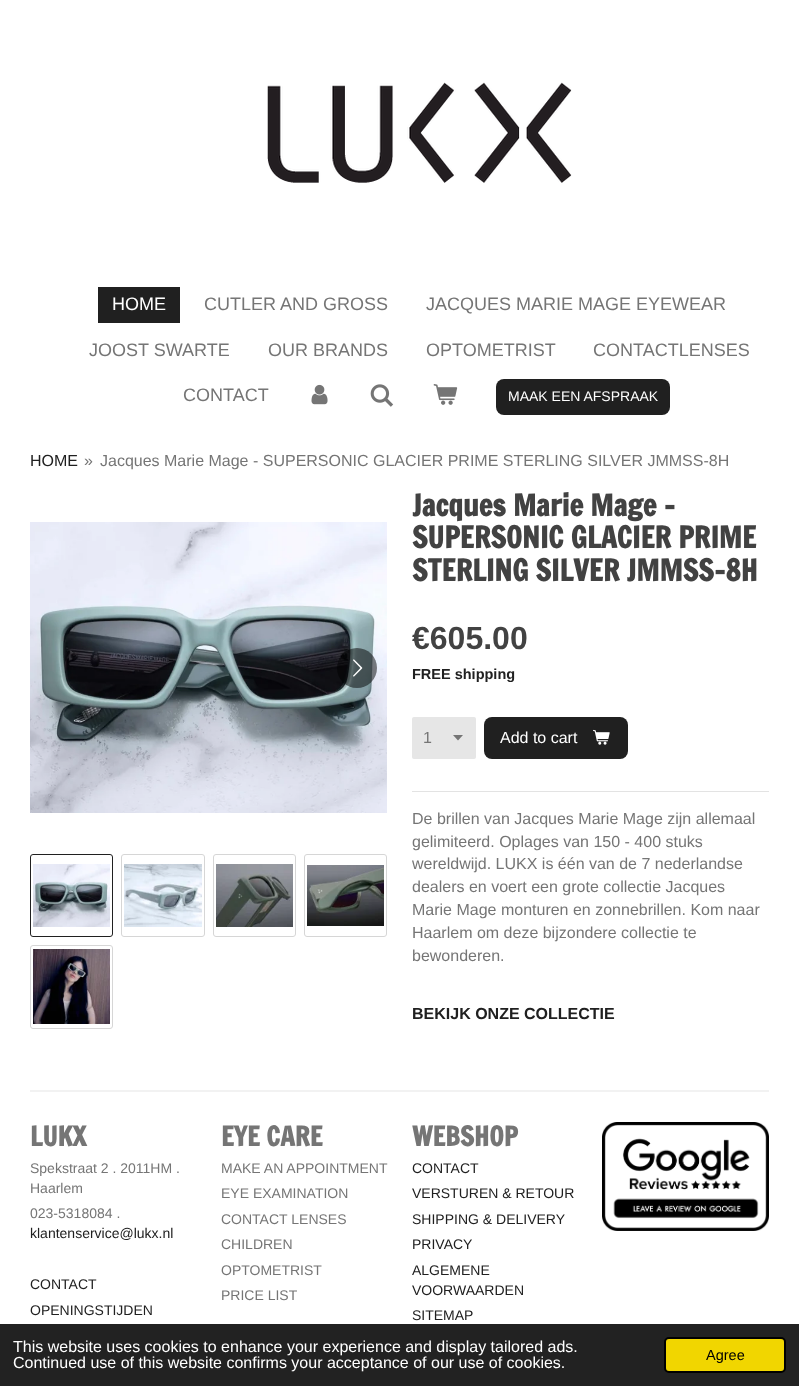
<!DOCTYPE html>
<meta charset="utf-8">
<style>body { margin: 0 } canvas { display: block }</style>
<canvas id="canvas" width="799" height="1386"></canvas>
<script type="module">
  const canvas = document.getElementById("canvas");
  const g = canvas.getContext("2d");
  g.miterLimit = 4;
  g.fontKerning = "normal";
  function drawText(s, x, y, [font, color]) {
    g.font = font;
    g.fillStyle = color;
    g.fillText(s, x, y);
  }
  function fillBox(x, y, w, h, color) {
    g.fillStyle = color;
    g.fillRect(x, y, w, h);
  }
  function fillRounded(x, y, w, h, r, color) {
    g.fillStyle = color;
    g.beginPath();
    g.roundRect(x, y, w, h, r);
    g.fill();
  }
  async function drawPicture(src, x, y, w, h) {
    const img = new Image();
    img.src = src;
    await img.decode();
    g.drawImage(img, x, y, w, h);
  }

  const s1 = ["18px Liberation Sans", "#FFFFFF"];
  const s2 = ["18px Liberation Sans", "#757575"];
  const s3 = ["14px Liberation Sans", "#FFFFFF"];
  const s4 = ["16px Liberation Sans", "#202020"];
  const s5 = ["16px Liberation Sans", "#757575"];
  const s6 = ["bold 29.25px Francois One", "#424242"];
  const s7 = ["bold 32px Liberation Sans", "#424242"];
  const s8 = ["bold 14.5px Liberation Sans", "#202020"];
  const s9 = ["16px Liberation Sans", "#FFFFFF"];
  const s10 = ["bold 16px Liberation Sans", "#202020"];
  const s11 = ["bold 26.5px Francois One", "#757575"];
  const s12 = ["14px Liberation Sans", "#757575"];
  const s13 = ["14px Liberation Sans", "#202020"];
  const s14 = ["14.5px Liberation Sans", "#000000"];

  fillBox(0, 0, 799, 1386, "#FFFFFF");
  await drawPicture("pic1.png", 267, 82, 305, 101);
  fillBox(98, 287, 82, 36, "#202020");
  drawText("HOME", 112, 310, s1);
  drawText("CUTLER AND GROSS", 204, 310, s2);
  drawText("JACQUES MARIE MAGE EYEWEAR", 426, 310, s2);
  drawText("JOOST SWARTE", 89, 356, s2);
  drawText("OUR BRANDS", 268, 356, s2);
  drawText("OPTOMETRIST", 426, 356, s2);
  drawText("CONTACTLENSES", 593, 356, s2);
  drawText("CONTACT", 183, 401, s2);
  await drawPicture("pic2.png", 311, 384, 17, 21);
  await drawPicture("pic3.png", 370, 384, 24, 23);
  await drawPicture("pic4.png", 433, 384, 25, 21);
  fillRounded(496, 379, 174, 36, 8, "#202020");
  drawText("MAAK EEN AFSPRAAK", 508, 401, s3);
  drawText("HOME", 30, 466, s4);
  drawText("»", 84, 466, s5);
  drawText("Jacques Marie Mage - SUPERSONIC GLACIER PRIME STERLING SILVER JMMSS-8H", 100, 466, s5);
  await drawPicture("pic5.png", 30, 522, 357, 291);
  g.fillStyle = "rgba(0, 0, 0, 0.5)";
  g.beginPath();
  g.arc(357, 668, 20, 0, Math.PI * 2);
  g.fill();
  await drawPicture("pic6.png", 353, 659, 10, 18);
  g.beginPath();
  g.roundRect(30.5, 854.5, 82, 82, 2.5);
  g.strokeStyle = "#202020";
  g.stroke();
  await drawPicture("pic7.png", 33, 864, 77, 63);
  g.beginPath();
  g.roundRect(121.5, 854.5, 83, 82, 2.5);
  g.strokeStyle = "#D6D6D6";
  g.stroke();
  await drawPicture("pic8.png", 124, 864, 78, 63);
  g.beginPath();
  g.roundRect(213.5, 854.5, 82, 82, 2.5);
  g.stroke();
  await drawPicture("pic9.png", 216, 864, 77, 63);
  g.beginPath();
  g.roundRect(304.5, 854.5, 82, 82, 2.5);
  g.stroke();
  await drawPicture("pic10.png", 307, 865, 77, 61);
  g.beginPath();
  g.roundRect(30.5, 945.5, 82, 83, 2.5);
  g.stroke();
  await drawPicture("pic11.png", 33, 949, 77, 75);
  drawText("Jacques Marie Mage -", 412, 516, s6);
  drawText("SUPERSONIC GLACIER PRIME", 412, 548, s6);
  drawText("STERLING SILVER JMMSS-8H", 412, 581, s6);
  drawText("€605.00", 412, 649, s7);
  drawText("FREE shipping", 412, 679, s8);
  fillRounded(412, 717, 64, 42, 2, "#E6E6E6");
  g.fillStyle = "#757575";
  g.beginPath();
  g.moveTo(458, 740.5);
  g.lineTo(453, 735);
  g.lineTo(463, 735);
  g.closePath();
  g.fill();
  drawText("1", 423, 743, s5);
  fillRounded(484, 717, 144, 42, 8, "#202020");
  drawText("Add to cart", 500, 743, s9);
  await drawPicture("pic12.png", 593, 729, 17, 16);
  fillBox(412, 791, 357, 1, "#E3E3E3");
  drawText("De brillen van Jacques Marie Mage zijn allemaal", 412, 824, s5);
  drawText("gelimiteerd. Oplages van 150 - 400 stuks", 412, 847, s5);
  drawText("wereldwijd. LUKX is één van de 7 nederlandse", 412, 869, s5);
  drawText("dealers en voert een grote collectie Jacques", 412, 892, s5);
  drawText("Marie Mage monturen en zonnebrillen. Kom naar", 412, 915, s5);
  drawText("Haarlem om deze bijzondere collectie te", 412, 938, s5);
  drawText("bewonderen.", 412, 961, s5);
  drawText("BEKIJK ONZE COLLECTIE", 412, 1019, s10);
  fillBox(30, 1090, 739, 2, "#F2F2F2");
  drawText("LUKX", 30, 1146, s11);
  drawText("Spekstraat 2 . 2011HM .", 30, 1173, s12);
  drawText("Haarlem", 30, 1193, s12);
  drawText("023-5318084 .", 30, 1218, s12);
  drawText("klantenservice@lukx.nl", 30, 1238, s13);
  drawText("CONTACT", 30, 1289, s13);
  drawText("OPENINGSTIJDEN", 30, 1315, s13);
  drawText("EYE CARE", 221, 1146, s11);
  drawText("MAKE AN APPOINTMENT", 221, 1173, s12);
  drawText("EYE EXAMINATION", 221, 1198, s12);
  drawText("CONTACT LENSES", 221, 1224, s12);
  drawText("CHILDREN", 221, 1249, s12);
  drawText("OPTOMETRIST", 221, 1275, s12);
  drawText("PRICE LIST", 221, 1300, s12);
  drawText("WEBSHOP", 412, 1146, s11);
  drawText("CONTACT", 412, 1173, s13);
  drawText("VERSTUREN & RETOUR", 412, 1198, s13);
  drawText("SHIPPING & DELIVERY", 412, 1224, s13);
  drawText("PRIVACY", 412, 1249, s13);
  drawText("ALGEMENE", 412, 1275, s13);
  drawText("VOORWAARDEN", 412, 1295, s13);
  drawText("SITEMAP", 412, 1320, s13);
  await drawPicture("pic13.png", 602, 1122, 167, 109);
  fillBox(0, 1324, 799, 62, "#222222");
  drawText("This website uses cookies to enhance your experience and display tailored ads.", 13, 1352, s9);
  drawText("Continued use of this website confirms your acceptance of our use of cookies.", 13, 1368, s9);
  g.fillStyle = "#F1D600";
  g.beginPath();
  g.roundRect(665, 1338, 120, 34, 4);
  g.fill();
  g.strokeStyle = "#000000";
  g.lineWidth = 2;
  g.stroke();
  drawText("Agree", 706, 1360, s14);
</script>
